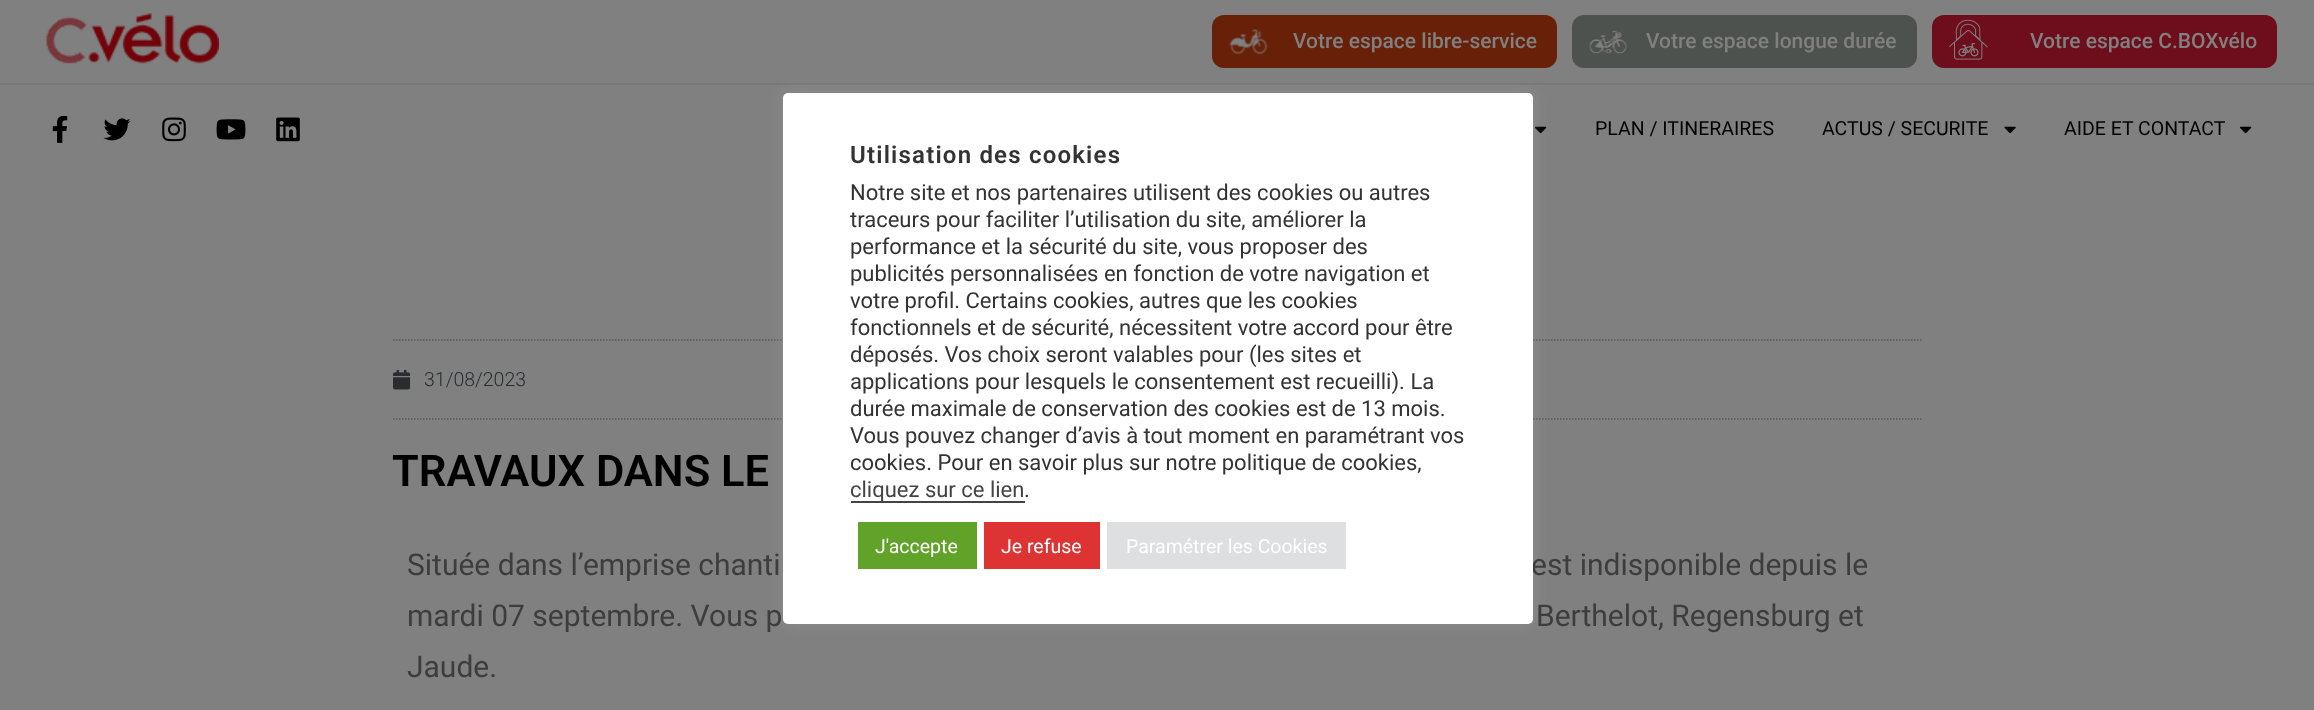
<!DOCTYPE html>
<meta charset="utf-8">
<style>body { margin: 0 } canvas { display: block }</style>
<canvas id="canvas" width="2314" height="710"></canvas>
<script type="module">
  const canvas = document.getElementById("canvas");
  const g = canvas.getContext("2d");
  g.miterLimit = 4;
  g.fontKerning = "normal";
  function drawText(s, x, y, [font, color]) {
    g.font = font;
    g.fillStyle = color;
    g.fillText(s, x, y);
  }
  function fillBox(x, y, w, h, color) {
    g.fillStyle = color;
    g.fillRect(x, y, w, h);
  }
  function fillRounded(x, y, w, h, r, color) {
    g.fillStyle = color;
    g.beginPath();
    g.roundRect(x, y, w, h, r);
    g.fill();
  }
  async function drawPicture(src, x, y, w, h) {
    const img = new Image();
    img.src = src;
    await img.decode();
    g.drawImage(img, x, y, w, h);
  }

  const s1 = ["500 21px Roboto", "#808080"];
  const s2 = ["19.5px Roboto", "#000000"];
  const s3 = ["30px Roboto", "#3D3D3D"];
  const s4 = ["600 24px Roboto", "#333333"];
  const s5 = ["22px Roboto", "#333333"];
  const s6 = ["22px Roboto", "#444444"];
  const s7 = ["19.5px Roboto", "#FFFFFF"];
  const s8 = ["300 19.5px Roboto", "#2A2D30"];
  const s9 = ["600 43.5px Roboto", "#000000"];

  fillBox(0, 0, 2314, 710, "#808080");
  await drawPicture("pic1.png", 46, 13, 173, 51);
  fillRounded(1212, 15, 345, 53, 12, "#692008");
  await drawPicture("pic2.png", 1229, 29, 39, 26);
  drawText("Votre espace libre-service", 1293, 48, s1);
  fillRounded(1572, 15, 345, 53, 12, "#4E524E");
  await drawPicture("pic3.png", 1589, 30, 38, 24);
  drawText("Votre espace longue durée", 1646, 48, s1);
  fillRounded(1932, 15, 345, 53, 12, "#6E0E1C");
  await drawPicture("pic4.png", 1949, 19, 39, 41);
  drawText("Votre espace C.BOXvélo", 2030, 48, s1);
  fillBox(0, 83, 2314, 1, "#777777");
  fillBox(0, 84, 2314, 1, "#797979");
  await drawPicture("pic5.png", 52, 115, 16, 28);
  await drawPicture("pic6.png", 103, 118, 28, 23);
  await drawPicture("pic7.png", 162, 117, 24, 25);
  await drawPicture("pic8.png", 216, 119, 30, 21);
  await drawPicture("pic9.png", 276, 117, 24, 25);
  await drawPicture("pic10.png", 1535, 126, 12, 8);
  drawText("PLAN / ITINERAIRES", 1595, 135, s2);
  drawText("ACTUS / SECURITE", 1822, 135, s2);
  await drawPicture("pic11.png", 2004, 126, 12, 8);
  drawText("AIDE ET CONTACT", 2064, 135, s2);
  await drawPicture("pic10.png", 2240, 126, 12, 8);
  g.beginPath();
  g.moveTo(393, 340);
  g.lineTo(1923, 340);
  g.strokeStyle = "#585858";
  g.lineWidth = 1.5;
  g.setLineDash([1.5, 1.5]);
  g.stroke();
  g.beginPath();
  g.moveTo(393, 419);
  g.lineTo(1923, 419);
  g.stroke();
  g.fillStyle = "rgba(172, 171, 171, 0.3)";
  g.filter = "blur(7.5px)";
  g.beginPath();
  g.roundRect(783, 92, 750, 531, 5);
  g.fill();
  g.filter = "none";
  drawText("est indisponible depuis le", 1531, 575, s3);
  fillRounded(783, 93, 750, 531, 5, "#FFFFFF");
  g.letterSpacing = "1.2px";
  drawText("Utilisation des cookies", 850, 163, s4);
  g.letterSpacing = "0px";
  drawText("Notre site et nos partenaires utilisent des cookies ou autres", 850, 200, s5);
  drawText("traceurs pour faciliter l’utilisation du site, améliorer la", 850, 227, s5);
  drawText("performance et la sécurité du site, vous proposer des", 850, 254, s5);
  drawText("publicités personnalisées en fonction de votre navigation et", 850, 281, s5);
  drawText("votre profil. Certains cookies, autres que les cookies", 850, 308, s5);
  drawText("fonctionnels et de sécurité, nécessitent votre accord pour être", 850, 335, s5);
  drawText("déposés. Vos choix seront valables pour (les sites et", 850, 362, s5);
  drawText("applications pour lesquels le consentement est recueilli). La", 850, 389, s5);
  drawText("durée maximale de conservation des cookies est de 13 mois.", 850, 416, s5);
  drawText("Vous pouvez changer d’avis à tout moment en paramétrant vos", 850, 443, s5);
  drawText("cookies. Pour en savoir plus sur notre politique de cookies,", 850, 470, s5);
  fillBox(851, 501, 174, 2, "#444444");
  drawText("cliquez sur ce lien", 850, 497, s6);
  drawText(".", 1024, 497, s5);
  fillBox(858, 522, 119, 47, "#61A229");
  drawText("J'accepte", 875, 553, s7);
  fillBox(984, 522, 116, 47, "#DD3333");
  drawText("Je refuse", 1001, 553, s7);
  fillBox(1107, 522, 239, 47, "#DEDFE0");
  drawText("Paramétrer les Cookies", 1126, 553, s7);
  await drawPicture("pic12.png", 393, 369, 18, 21);
  drawText("31/08/2023", 424, 386, s8);
  drawText("TRAVAUX DANS LE", 392, 486, s9);
  drawText("Située dans l’emprise chanti", 407, 575, s3);
  drawText("mardi 07 septembre. Vous p", 407, 626, s3);
  drawText("Berthelot, Regensburg et", 1536, 626, s3);
  drawText("Jaude.", 407, 677, s3);
</script>
